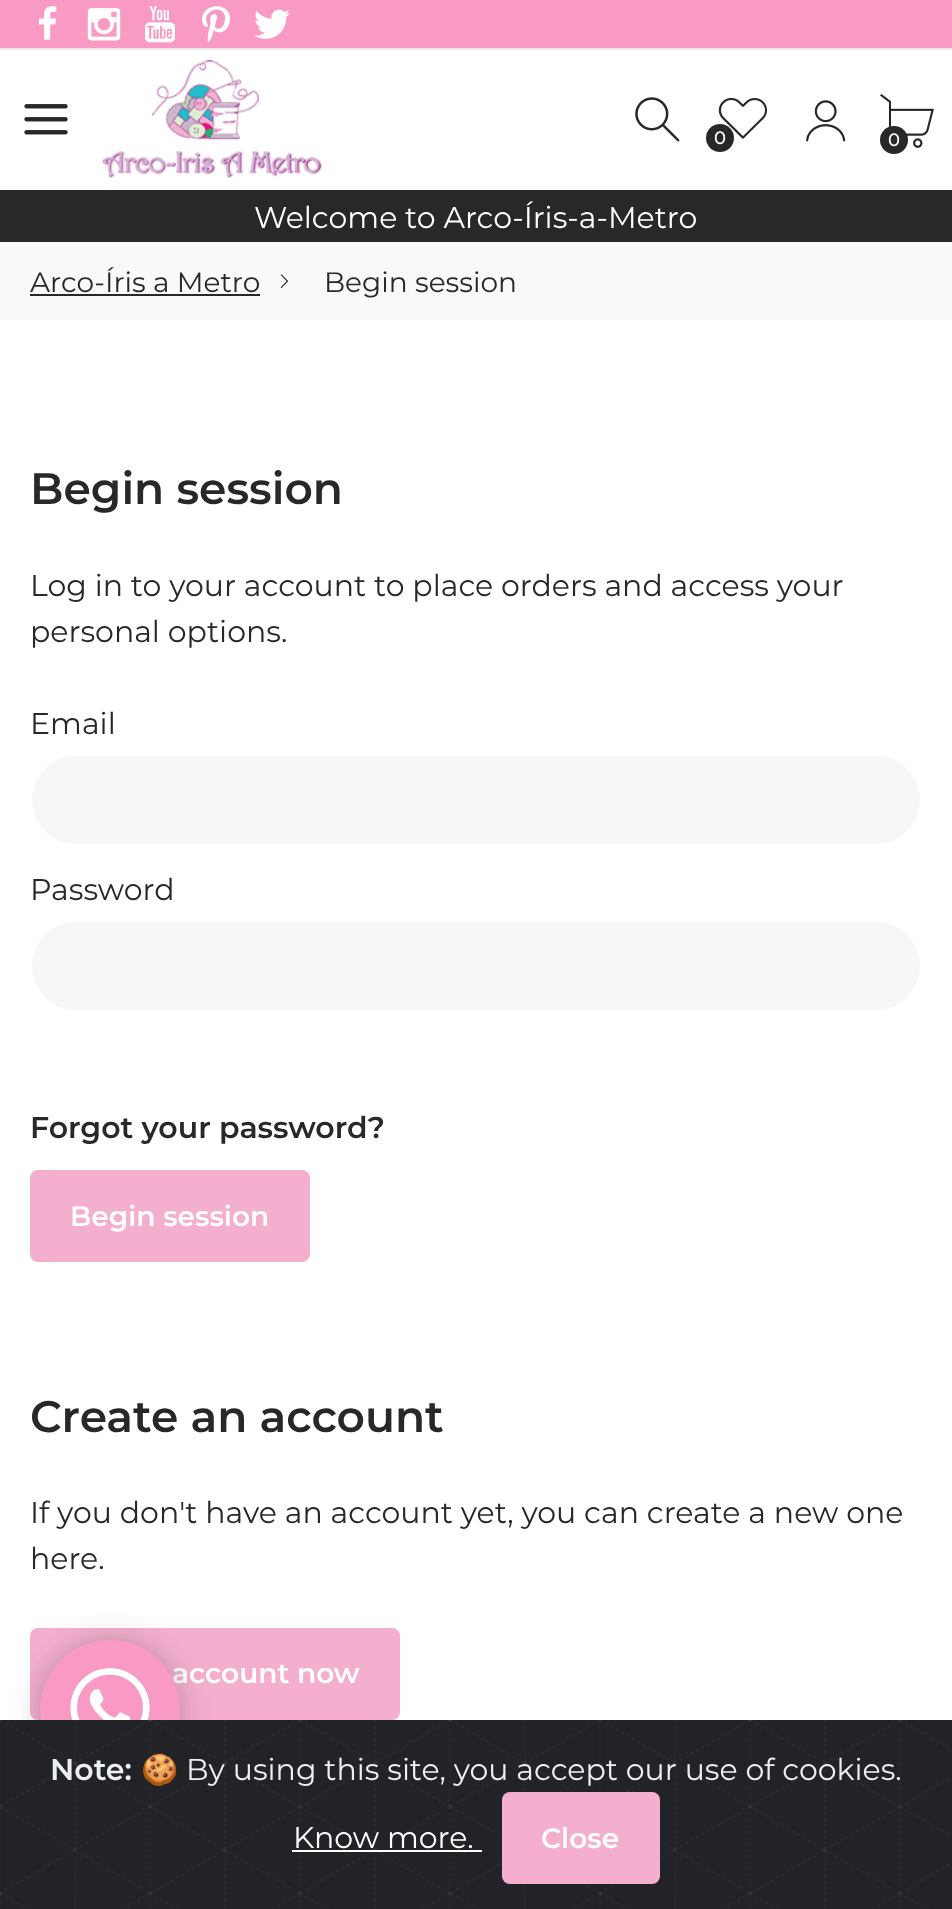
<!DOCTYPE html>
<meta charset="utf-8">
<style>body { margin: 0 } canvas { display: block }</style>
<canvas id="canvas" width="952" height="1909"></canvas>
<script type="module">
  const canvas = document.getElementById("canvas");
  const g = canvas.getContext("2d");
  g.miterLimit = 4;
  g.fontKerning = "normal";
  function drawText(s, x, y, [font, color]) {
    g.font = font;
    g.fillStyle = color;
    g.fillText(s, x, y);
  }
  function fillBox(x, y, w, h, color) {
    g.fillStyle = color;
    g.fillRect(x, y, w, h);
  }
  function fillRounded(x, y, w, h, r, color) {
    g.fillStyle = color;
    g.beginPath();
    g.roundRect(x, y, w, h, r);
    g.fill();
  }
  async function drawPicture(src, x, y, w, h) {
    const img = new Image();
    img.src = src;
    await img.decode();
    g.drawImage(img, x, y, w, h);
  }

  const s1 = ["500 18px Montserrat", "#FFFFFF"];
  const s2 = ["30px Montserrat", "#FFFFFF"];
  const s3 = ["28px Montserrat", "#282828"];
  const s4 = ["600 44px Montserrat", "#282828"];
  const s5 = ["30px Montserrat", "#282828"];
  const s6 = ["600 30px Montserrat", "#282828"];
  const s7 = ["600 28px Montserrat", "#FFFFFF"];
  const s8 = ["600 30px Montserrat", "#ECF0F1"];
  const s9 = ["30px Noto Color Emoji", "#ECF0F1"];
  const s10 = ["30px Montserrat", "#ECF0F1"];

  fillBox(0, 0, 952, 1909, "#FFFFFF");
  fillBox(0, 0, 952, 48, "#F99AC4");
  fillBox(0, 48, 952, 2, "#E8E8E8");
  await drawPicture("pic1.png", 39, 6, 18, 34);
  await drawPicture("pic2.png", 87, 8, 34, 33);
  await drawPicture("pic3.png", 145, 6, 30, 37);
  await drawPicture("pic4.png", 202, 6, 28, 36);
  await drawPicture("pic5.png", 254, 9, 36, 30);
  await drawPicture("pic6.png", 24, 104, 44, 31);
  await drawPicture("pic7.png", 102, 60, 220, 118);
  await drawPicture("pic8.png", 635, 97, 45, 45);
  await drawPicture("pic9.png", 718, 97, 49, 42);
  g.fillStyle = "#282828";
  g.beginPath();
  g.arc(720, 138, 14, 0, Math.PI * 2);
  g.fill();
  drawText("0", 714, 144, s1);
  await drawPicture("pic10.png", 806, 100, 40, 42);
  await drawPicture("pic11.png", 880, 93, 54, 55);
  g.fillStyle = "#282828";
  g.beginPath();
  g.arc(894, 140, 14, 0, Math.PI * 2);
  g.fill();
  drawText("0", 888, 146, s1);
  fillBox(0, 190, 952, 52, "#282828");
  drawText("Welcome to Arco-Íris-a-Metro", 254, 228, s2);
  fillBox(0, 242, 952, 78, "#F9F9F9");
  drawText("Arco-Íris a Metro", 30, 292, s3);
  fillBox(30, 294, 230, 2, "#282828");
  await drawPicture("pic12.png", 280, 274, 8, 14);
  drawText("Begin session", 324, 292, s3);
  drawText("Begin session", 30, 504, s4);
  drawText("Log in to your account to place orders and access your", 30, 596, s5);
  drawText("personal options.", 30, 642, s5);
  drawText("Email", 30, 734, s5);
  fillRounded(32, 756, 888, 88, 44, "#F7F7F8");
  drawText("Password", 30, 900, s5);
  fillRounded(32, 922, 888, 88, 44, "#F7F7F8");
  drawText("Forgot your password?", 30, 1138, s6);
  fillRounded(30, 1170, 280, 92, 8, "#F4AFCE");
  drawText("Begin session", 70, 1226, s7);
  drawText("Create an account", 30, 1432, s4);
  drawText("If you don't have an account yet, you can create a new one", 30, 1523, s5);
  drawText("here.", 30, 1569, s5);
  fillRounded(30, 1628, 370, 92, 8, "#F4AFCE");
  drawText("account now", 172, 1683, s7);
  g.fillStyle = "rgba(32, 33, 36, 0.28)";
  g.filter = "blur(15px)";
  g.beginPath();
  g.roundRect(40, 1642, 140, 140, 70);
  g.fill();
  g.filter = "none";
  g.fillStyle = "#F99AC4";
  g.beginPath();
  g.arc(110, 1710, 70, 0, Math.PI * 2);
  g.fill();
  await drawPicture("pic13.png", 70, 1668, 80, 52);
  fillBox(950, 1720, 2, 189, "#212327");
  await drawPicture("pic14.png", 0, 1720, 950, 189);
  drawText("Note:", 50, 1780, s8);
  drawText("🍪", 141, 1780, s9);
  drawText("By using this site, you accept our use of cookies.", 186, 1780, s10);
  drawText("Know more.", 293, 1848, s2);
  fillBox(292, 1850, 190, 2, "#FFFFFF");
  fillRounded(502, 1792, 158, 92, 8, "#F4AFCE");
  drawText("Close", 541, 1848, s7);
</script>
